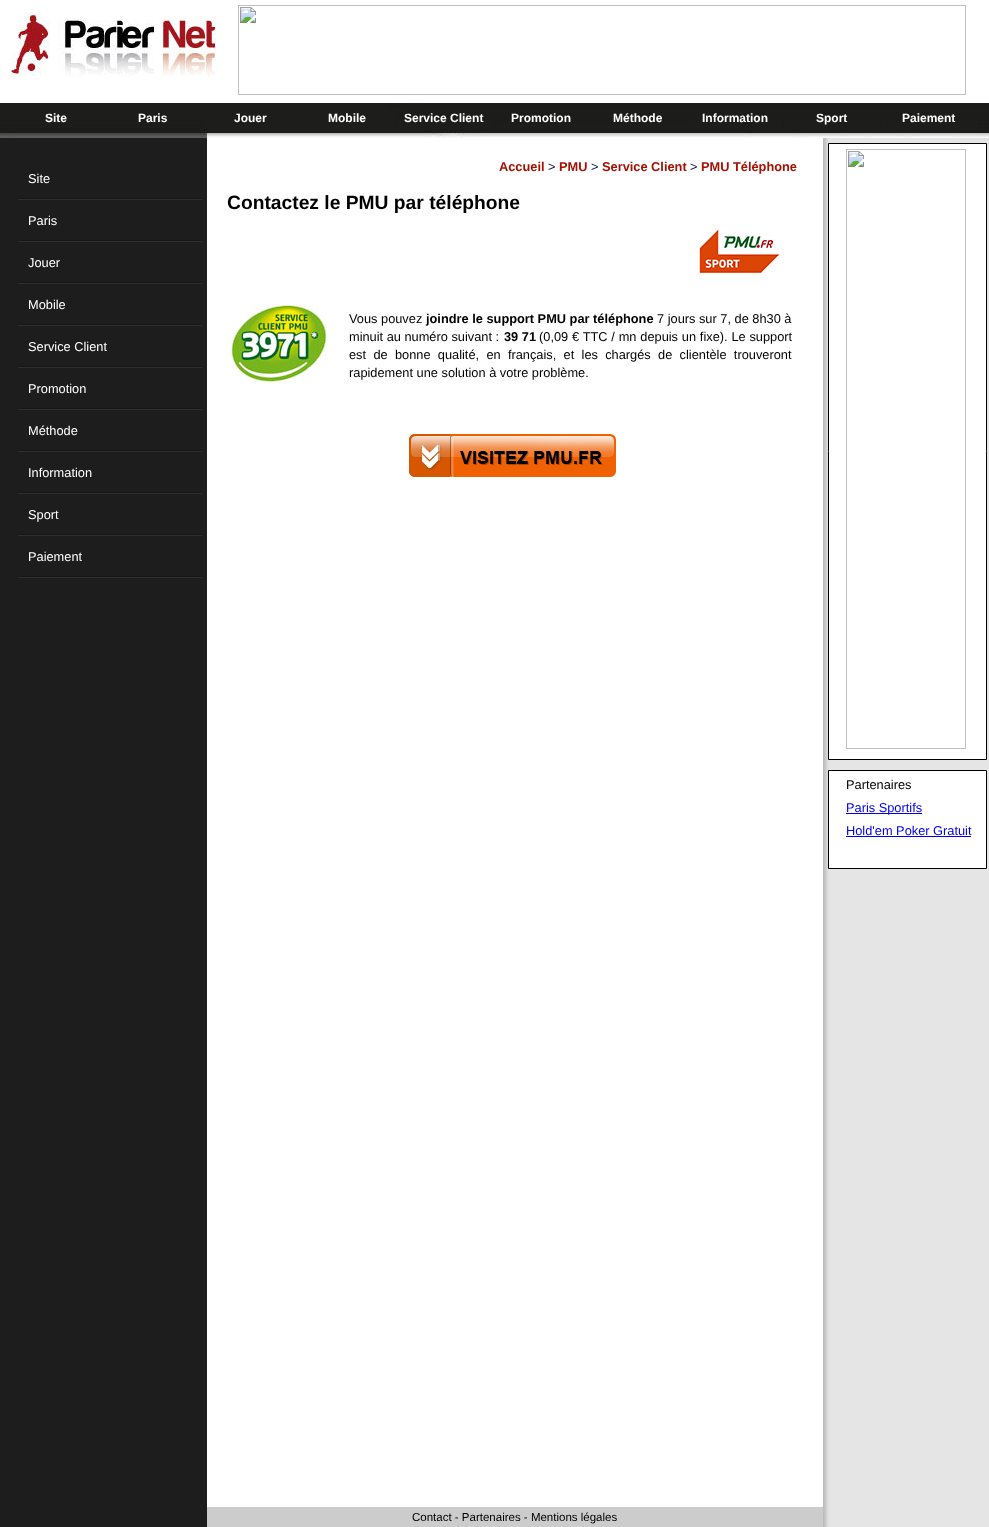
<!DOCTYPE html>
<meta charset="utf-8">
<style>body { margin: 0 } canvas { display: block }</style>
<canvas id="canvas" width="989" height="1527"></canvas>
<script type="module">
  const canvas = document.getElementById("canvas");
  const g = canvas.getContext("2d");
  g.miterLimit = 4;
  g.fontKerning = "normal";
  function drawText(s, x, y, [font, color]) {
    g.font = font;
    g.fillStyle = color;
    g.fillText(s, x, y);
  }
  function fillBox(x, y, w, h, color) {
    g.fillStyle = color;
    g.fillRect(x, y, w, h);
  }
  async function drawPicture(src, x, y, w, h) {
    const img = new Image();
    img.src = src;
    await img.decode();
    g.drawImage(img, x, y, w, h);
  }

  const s1 = ["bold 12px Liberation Sans", "#FFFFFF"];
  const s2 = ["12.8px Liberation Sans", "#FFFFFF"];
  const s3 = ["bold 12.8px Liberation Sans", "#A41205"];
  const s4 = ["12.8px Liberation Sans", "#091348"];
  const s5 = ["bold 19.25px Liberation Sans", "#000000"];
  const s6 = ["12.8px Liberation Sans", "#000000"];
  const s7 = ["bold 12.8px Liberation Sans", "#000000"];
  const s8 = ["12.8px Liberation Sans", "#0000EE"];
  const s9 = ["11.5px Liberation Sans", "#000000"];

  fillBox(0, 0, 989, 1527, "#FFFFFF");
  await drawPicture("pic1.png", 0, 138, 989, 1389);
  await drawPicture("pic2.png", 0, 0, 989, 138);
  await drawPicture("pic3.png", 10, 12, 206, 65);
  await drawPicture("pic4.png", 238, 5, 728, 90);
  drawText("Site", 45, 122, s1);
  fillBox(200, 125, 1, 4, "#1D1D1C");
  drawText("Paris", 138, 122, s1);
  fillBox(202, 125, 96, 4, "#1D1D1C");
  drawText("Jouer", 234, 122, s1);
  fillBox(299, 108, 96, 21, "#1D1D1C");
  drawText("Mobile", 328, 122, s1);
  fillBox(396, 120, 96, 9, "#1D1D1C");
  drawText("Service Client", 404, 122, s1);
  fillBox(493, 124, 96, 5, "#1D1D1C");
  drawText("Promotion", 511, 122, s1);
  fillBox(590, 124, 96, 5, "#1D1D1C");
  drawText("Méthode", 613, 122, s1);
  fillBox(687, 120, 96, 9, "#1D1D1C");
  drawText("Information", 702, 122, s1);
  fillBox(784, 120, 96, 9, "#1D1D1C");
  drawText("Sport", 816, 122, s1);
  fillBox(881, 120, 96, 9, "#1D1D1C");
  drawText("Paiement", 902, 122, s1);
  await drawPicture("pic5.png", 18, 198, 184, 2);
  drawText("Site", 28, 183, s2);
  await drawPicture("pic5.png", 18, 240, 184, 2);
  drawText("Paris", 28, 225, s2);
  await drawPicture("pic5.png", 18, 282, 184, 2);
  drawText("Jouer", 28, 267, s2);
  await drawPicture("pic5.png", 18, 324, 184, 2);
  drawText("Mobile", 28, 309, s2);
  await drawPicture("pic5.png", 18, 366, 184, 2);
  drawText("Service Client", 28, 351, s2);
  await drawPicture("pic5.png", 18, 408, 184, 2);
  drawText("Promotion", 28, 393, s2);
  await drawPicture("pic5.png", 18, 450, 184, 2);
  drawText("Méthode", 28, 435, s2);
  await drawPicture("pic5.png", 18, 492, 184, 2);
  drawText("Information", 28, 477, s2);
  await drawPicture("pic5.png", 18, 534, 184, 2);
  drawText("Sport", 28, 519, s2);
  await drawPicture("pic5.png", 18, 576, 184, 2);
  drawText("Paiement", 28, 561, s2);
  drawText("Accueil", 499, 171, s3);
  drawText(">", 548, 171, s4);
  drawText("PMU", 559, 171, s3);
  drawText(">", 591, 171, s4);
  drawText("Service Client", 602, 171, s3);
  drawText(">", 690, 171, s4);
  drawText("PMU Téléphone", 701, 171, s3);
  drawText("Contactez le PMU par téléphone", 227, 209, s5);
  await drawPicture("pic6.png", 698, 229, 82, 44);
  await drawPicture("pic7.png", 230, 304, 97, 79);
  drawText("Vous pouvez", 349, 323, s6);
  drawText("joindre le support PMU par téléphone", 426, 323, s7);
  drawText("7 jours sur 7, de 8h30 à", 657, 323, s6);
  drawText("minuit au numéro suivant :", 349, 341, s6);
  drawText("39 71", 504, 341, s7);
  g.wordSpacing = "0.25px";
  drawText("(0,09 € TTC / mn depuis un fixe). Le support", 539, 341, s6);
  g.wordSpacing = "3.75px";
  drawText("est de bonne qualité, en français, et les chargés de clientèle trouveront", 349, 359, s6);
  g.wordSpacing = "0px";
  drawText("rapidement une solution à votre problème.", 349, 377, s6);
  await drawPicture("pic8.png", 409, 434, 207, 43);
  g.fillStyle = "#FFFFFF";
  g.beginPath();
  g.rect(828.5, 143.5, 158, 616);
  g.fill();
  g.strokeStyle = "#000000";
  g.stroke();
  await drawPicture("pic9.png", 846, 149, 120, 600);
  g.beginPath();
  g.rect(828.5, 770.5, 158, 98);
  g.fill();
  g.stroke();
  drawText("Partenaires", 846, 789, s6);
  fillBox(846, 813, 76, 1, "#0000EE");
  drawText("Paris Sportifs", 846, 812, s8);
  drawText("Hold'em Poker Gratuit", 846, 835, s8);
  fillBox(846, 836, 125, 1, "#0000EE");
  fillBox(207, 1507, 616, 20, "#CCCCCC");
  drawText("Contact - Partenaires - Mentions légales", 412, 1521, s9);
</script>
